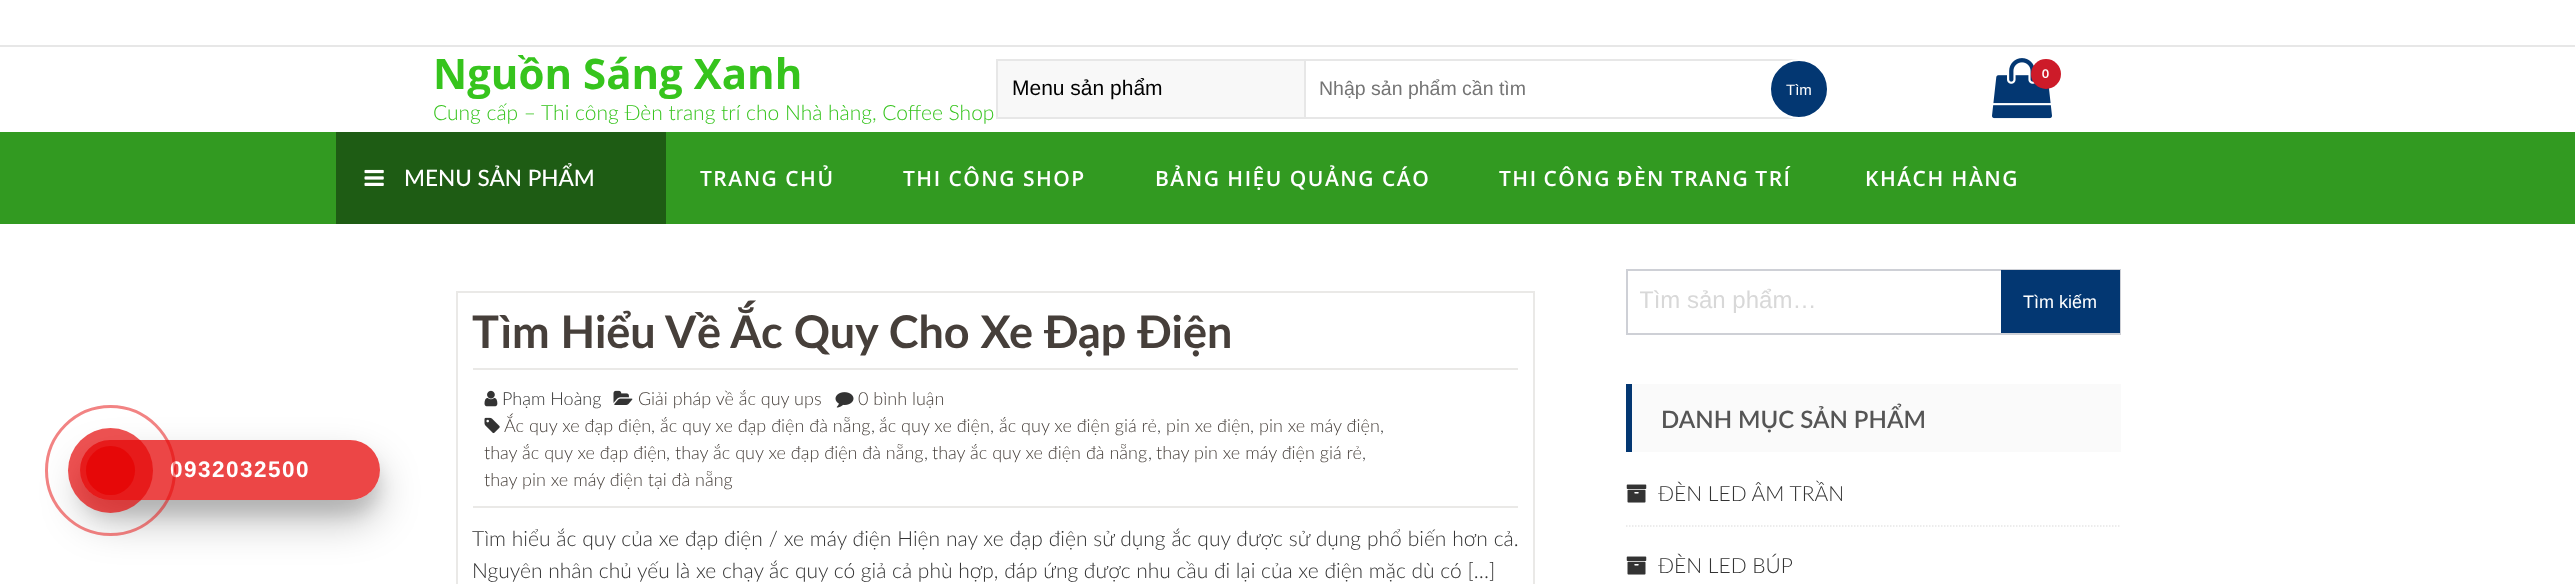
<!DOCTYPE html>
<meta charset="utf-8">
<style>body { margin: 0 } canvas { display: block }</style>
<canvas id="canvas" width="2575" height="584"></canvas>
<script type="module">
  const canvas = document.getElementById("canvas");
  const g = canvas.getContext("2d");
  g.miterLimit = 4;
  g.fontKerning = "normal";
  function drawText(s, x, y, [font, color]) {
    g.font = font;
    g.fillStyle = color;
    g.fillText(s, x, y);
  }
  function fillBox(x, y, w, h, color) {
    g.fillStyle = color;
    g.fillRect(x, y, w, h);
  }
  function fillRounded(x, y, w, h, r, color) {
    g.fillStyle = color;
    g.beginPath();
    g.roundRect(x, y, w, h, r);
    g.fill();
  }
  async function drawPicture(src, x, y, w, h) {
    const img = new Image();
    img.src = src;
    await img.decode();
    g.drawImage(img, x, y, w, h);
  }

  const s1 = ["bold 22.5px Liberation Sans", "#FFFFFF"];
  const s2 = ["bold 42px Open Sans", "#36C41D"];
  const s3 = ["300 21px Lato", "#36C41D"];
  const s4 = ["bold 12px Lato", "#FFFFFF"];
  const s5 = ["21px Liberation Sans", "#000000"];
  const s6 = ["19.5px Liberation Sans", "#757575"];
  const s7 = ["15px Liberation Sans", "#FFFFFF"];
  const s8 = ["500 22.5px Lato", "#FFFFFF"];
  const s9 = ["600 21px Open Sans", "#FFFFFF"];
  const s10 = ["bold 45px Lato", "#463F3A"];
  const s11 = ["300 18px Lato", "#333333"];
  const s12 = ["300 18px Lato", "#463F3A"];
  const s13 = ["300 21px Lato", "#333333"];
  const s14 = ["24px Liberation Sans", "#D8D8D8"];
  const s15 = ["18px Liberation Sans", "#FFFFFF"];
  const s16 = ["600 24px Lato", "#555555"];

  fillBox(0, 0, 2575, 584, "#FFFFFF");
  g.save();
  g.beginPath();
  g.moveTo(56, 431);
  g.lineTo(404, 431);
  g.lineTo(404, 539);
  g.lineTo(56, 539);
  g.closePath();
  g.moveTo(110, 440);
  g.lineTo(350, 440);
  g.bezierCurveTo(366.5, 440, 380, 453.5, 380, 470);
  g.bezierCurveTo(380, 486.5, 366.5, 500, 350, 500);
  g.lineTo(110, 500);
  g.bezierCurveTo(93.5, 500, 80, 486.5, 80, 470);
  g.bezierCurveTo(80, 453.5, 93.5, 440, 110, 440);
  g.closePath();
  g.clip("evenodd");
  g.fillStyle = "rgba(0, 0, 0, 0.1)";
  g.filter = "blur(7.5px)";
  g.beginPath();
  g.roundRect(80, 455, 300, 60, 30);
  g.fill();
  g.filter = "none";
  g.restore();
  g.save();
  g.beginPath();
  g.moveTo(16, 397);
  g.lineTo(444, 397);
  g.lineTo(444, 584);
  g.lineTo(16, 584);
  g.closePath();
  g.moveTo(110, 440);
  g.lineTo(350, 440);
  g.bezierCurveTo(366.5, 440, 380, 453.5, 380, 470);
  g.bezierCurveTo(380, 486.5, 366.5, 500, 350, 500);
  g.lineTo(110, 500);
  g.bezierCurveTo(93.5, 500, 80, 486.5, 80, 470);
  g.bezierCurveTo(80, 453.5, 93.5, 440, 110, 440);
  g.closePath();
  g.clip("evenodd");
  g.fillStyle = "rgba(0, 0, 0, 0.25)";
  g.filter = "blur(21px)";
  g.beginPath();
  g.roundRect(80, 461, 300, 60, 30);
  g.fill();
  g.filter = "none";
  g.restore();
  fillRounded(80, 440, 300, 60, 30, "rgba(230, 8, 8, 0.75)");
  g.letterSpacing = "1.5px";
  drawText("0932032500", 170, 477, s1);
  g.beginPath();
  g.arc(110.5, 470.5, 64, 0, Math.PI * 2);
  g.strokeStyle = "rgba(230, 8, 8, 0.5)";
  g.lineWidth = 3;
  g.stroke();
  g.fillStyle = "rgba(230, 8, 8, 0.7)";
  g.beginPath();
  g.arc(110.5, 470.5, 42.5, 0, Math.PI * 2);
  g.fill();
  g.fillStyle = "#E60808";
  g.beginPath();
  g.arc(110.5, 470.5, 24.5, 0, Math.PI * 2);
  g.fill();
  fillBox(0, 45, 2575, 2, "#E7E7E7");
  g.letterSpacing = "0px";
  drawText("Nguồn Sáng Xanh", 433, 89, s2);
  drawText("Cung cấp – Thi công Đèn trang trí cho Nhà hàng, Coffee Shop", 433, 120, s3);
  await drawPicture("pic1.png", 1992, 58, 60, 61);
  g.fillStyle = "#CD1B29";
  g.beginPath();
  g.arc(2046, 74, 15, 0, Math.PI * 2);
  g.fill();
  drawText("0", 2042, 78, s4);
  fillBox(998, 61, 306, 56, "#F8F8F8");
  fillBox(996, 59, 308, 2, "#E7E7E7");
  fillBox(996, 117, 308, 2, "#E7E7E7");
  fillBox(996, 59, 2, 60, "#E7E7E7");
  drawText("Menu sản phẩm", 1012, 95, s5);
  g.strokeStyle = "#E7E7E7";
  g.lineWidth = 2;
  g.strokeRect(1305, 60, 493, 58);
  drawText("Nhập sản phẩm cần tìm", 1319, 95, s6);
  g.fillStyle = "#033772";
  g.beginPath();
  g.arc(1799, 89, 29, 0, Math.PI * 2);
  g.fill();
  g.strokeStyle = "#FFFFFF";
  g.stroke();
  drawText("Tìm", 1786, 95, s7);
  fillBox(0, 132, 2575, 92, "#329A21");
  fillBox(336, 132, 330, 92, "#1E5C14");
  await drawPicture("pic2.png", 364, 169, 20, 17);
  drawText("MENU SẢN PHẨM", 404, 186, s8);
  g.letterSpacing = "1.5px";
  drawText("TRANG CHỦ", 700, 186, s9);
  drawText("THI CÔNG SHOP", 903, 186, s9);
  drawText("BẢNG HIỆU QUẢNG CÁO", 1155, 186, s9);
  g.wordSpacing = "-1px";
  drawText("THI CÔNG ĐÈN TRANG TRÍ", 1499, 186, s9);
  g.wordSpacing = "0px";
  drawText("KHÁCH HÀNG", 1865, 186, s9);
  g.strokeStyle = "#EAE9E7";
  g.strokeRect(457, 292, 1077, 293);
  g.letterSpacing = "0px";
  drawText("Tìm Hiểu Về Ắc Quy Cho Xe Đạp Điện", 472, 348, s10);
  fillBox(473, 368, 1045, 2, "#EAE9E7");
  fillBox(473, 506, 1045, 2, "#EAE9E7");
  await drawPicture("pic3.png", 484, 390, 14, 17);
  drawText("Phạm Hoàng", 502, 405, s11);
  await drawPicture("pic4.png", 613, 390, 20, 15);
  drawText("Giải pháp về ắc quy ups", 638, 405, s12);
  await drawPicture("pic5.png", 835, 392, 19, 16);
  drawText("0 bình luận", 858, 405, s12);
  await drawPicture("pic6.png", 484, 417, 16, 17);
  drawText("Ắc quy xe đạp điện", 504, 432, s12);
  drawText(",", 651, 432, s11);
  drawText("ắc quy xe đạp điện đà nẵng", 660, 432, s12);
  drawText(",", 871, 432, s11);
  drawText("ắc quy xe điện", 879, 432, s12);
  drawText(",", 990, 432, s11);
  drawText("ắc quy xe điện giá rẻ", 999, 432, s12);
  drawText(",", 1157, 432, s11);
  drawText("pin xe điện", 1166, 432, s12);
  drawText(",", 1250, 432, s11);
  drawText("pin xe máy điện", 1259, 432, s12);
  drawText(",", 1380, 432, s11);
  drawText("thay ắc quy xe đạp điện", 484, 459, s12);
  drawText(",", 666, 459, s11);
  drawText("thay ắc quy xe đạp điện đà nẵng", 675, 459, s12);
  drawText(",", 924, 459, s11);
  drawText("thay ắc quy xe điện đà nẵng", 932, 459, s12);
  drawText(",", 1148, 459, s11);
  drawText("thay pin xe máy điện giá rẻ", 1156, 459, s12);
  drawText(",", 1362, 459, s11);
  drawText("thay pin xe máy điện tại đà nẵng", 484, 486, s12);
  g.wordSpacing = "0.15px";
  drawText("Tìm hiểu ắc quy của xe đạp điện / xe máy điện Hiện nay xe đạp điện sử dụng ắc quy được sử dụng phổ biến hơn cả.", 472, 546, s13);
  g.wordSpacing = "0px";
  drawText("Nguyên nhân chủ yếu là xe chạy ắc quy có giả cả phù hợp, đáp ứng được nhu cầu đi lại của xe điện mặc dù có […]", 472, 578, s13);
  g.strokeStyle = "#CED0D6";
  g.strokeRect(1627, 270, 493, 64);
  g.save();
  g.beginPath();
  g.rect(1640, 287, 351, 27);
  g.clip();
  drawText("Tìm sản phẩm…", 1639, 308, s14);
  g.restore();
  fillBox(2001, 270, 119, 63, "#033772");
  drawText("Tìm kiếm", 2023, 308, s15);
  fillBox(1632, 384, 489, 68, "#FAFAFA");
  fillBox(1626, 384, 6, 68, "#033772");
  drawText("DANH MỤC SẢN PHẨM", 1661, 428, s16);
  g.beginPath();
  g.moveTo(1626, 526);
  g.lineTo(2121, 526);
  g.strokeStyle = "#E6E6E6";
  g.lineWidth = 1.5;
  g.setLineDash([1.5, 1.5]);
  g.stroke();
  await drawPicture("pic7.png", 1626, 484, 21, 19);
  drawText("ĐÈN LED ÂM TRẦN", 1658, 501, s13);
  await drawPicture("pic7.png", 1626, 556, 21, 19);
  drawText("ĐÈN LED BÚP", 1658, 573, s13);
</script>
